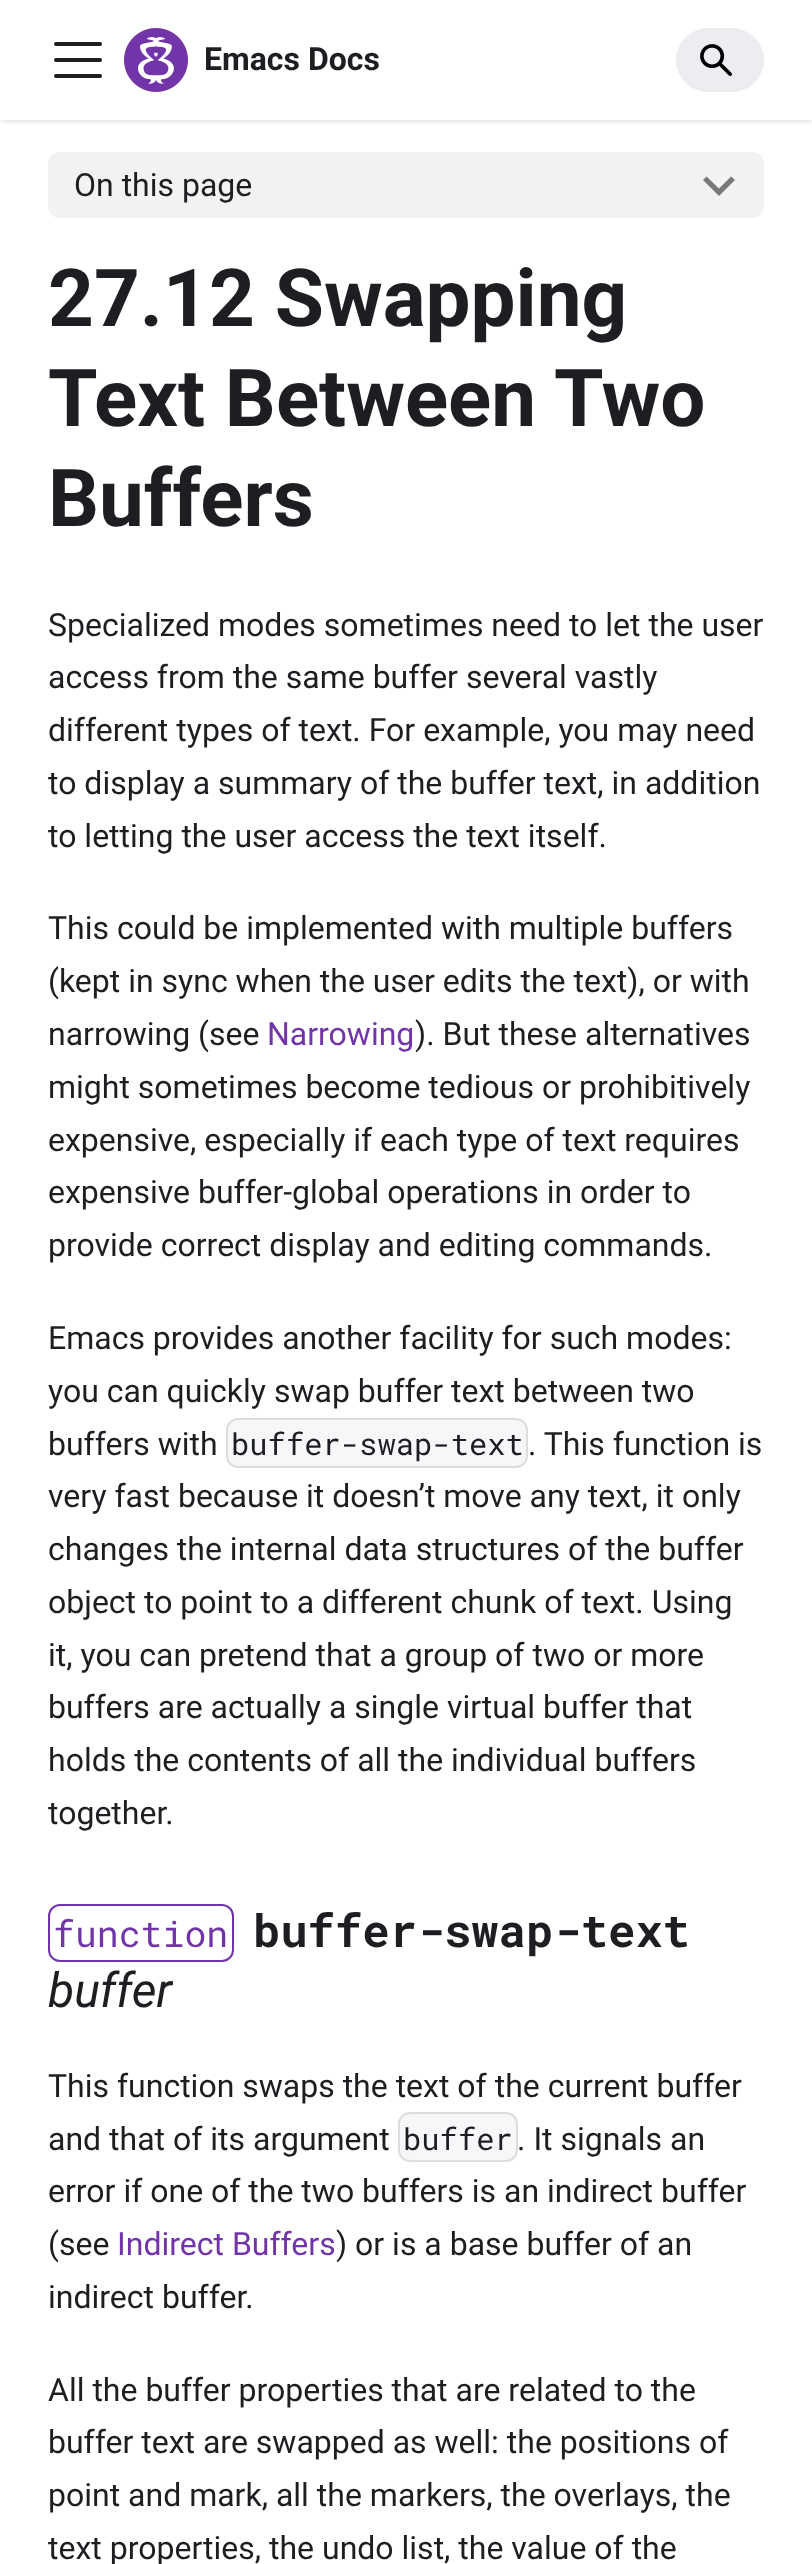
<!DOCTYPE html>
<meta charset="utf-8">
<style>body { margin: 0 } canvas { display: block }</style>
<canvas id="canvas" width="812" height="2564"></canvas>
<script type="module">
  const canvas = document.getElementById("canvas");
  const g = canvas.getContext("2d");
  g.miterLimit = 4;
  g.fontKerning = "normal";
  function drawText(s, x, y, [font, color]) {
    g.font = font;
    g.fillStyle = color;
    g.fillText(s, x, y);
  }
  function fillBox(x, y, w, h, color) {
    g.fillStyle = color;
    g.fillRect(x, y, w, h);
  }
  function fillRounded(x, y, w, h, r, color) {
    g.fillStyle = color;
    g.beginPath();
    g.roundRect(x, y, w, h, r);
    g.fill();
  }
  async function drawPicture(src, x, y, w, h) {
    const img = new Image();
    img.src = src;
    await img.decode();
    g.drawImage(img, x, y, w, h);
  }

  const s1 = ["bold 32px Roboto", "#1C1E21"];
  const s2 = ["32px Roboto", "#1C1E21"];
  const s3 = ["bold 80px Roboto", "#1C1E21"];
  const s4 = ["32px Roboto", "#7134A9"];
  const s5 = ["30.5px Roboto Mono", "#1C1E21"];
  const s6 = ["36.5px Roboto Mono", "#7134A9"];
  const s7 = ["bold 45.5px Roboto Mono", "#1C1E21"];
  const s8 = ["italic 48px Roboto", "#1C1E21"];

  fillBox(0, 0, 812, 2564, "#FFFFFF");
  g.save();
  g.beginPath();
  g.rect(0, 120, 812, 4);
  g.clip();
  g.fillStyle = "rgba(0, 0, 0, 0.1)";
  g.filter = "blur(2px)";
  g.beginPath();
  g.rect(0, 2, 812, 120);
  g.fill();
  g.filter = "none";
  g.restore();
  g.beginPath();
  g.moveTo(56, 44);
  g.lineTo(100, 44);
  g.moveTo(56, 60);
  g.lineTo(100, 60);
  g.moveTo(56, 76);
  g.lineTo(100, 76);
  g.strokeStyle = "#1C1E21";
  g.lineWidth = 4;
  g.lineCap = "round";
  g.stroke();
  await drawPicture("pic1.png", 124, 28, 64, 64);
  drawText("Emacs Docs", 204, 70, s1);
  fillRounded(676, 28, 88, 64, 32, "#EBEDF0");
  await drawPicture("pic2.png", 700, 44, 32, 32);
  fillRounded(48, 152, 716, 66, 12, "#F2F2F2");
  drawText("On this page", 74, 196, s2);
  g.fillStyle = "#797979";
  g.beginPath();
  g.moveTo(731, 176.5);
  g.lineTo(719, 188.5);
  g.lineTo(706.5, 176.5);
  g.lineTo(703, 180);
  g.lineTo(719, 196);
  g.lineTo(735, 180);
  g.closePath();
  g.fill();
  drawText("27.12 Swapping", 48, 326, s3);
  drawText("Text Between Two", 48, 426, s3);
  drawText("Buffers", 48, 526, s3);
  drawText("Specialized modes sometimes need to let the user", 48, 636, s2);
  drawText("access from the same buffer several vastly", 48, 688, s2);
  drawText("different types of text. For example, you may need", 48, 741, s2);
  drawText("to display a summary of the buffer text, in addition", 48, 794, s2);
  drawText("to letting the user access the text itself.", 48, 847, s2);
  drawText("This could be implemented with multiple buffers", 48, 939, s2);
  drawText("(kept in sync when the user edits the text), or with", 48, 992, s2);
  drawText("narrowing (see", 48, 1045, s2);
  drawText("Narrowing", 267, 1045, s4);
  drawText("). But these alternatives", 415, 1045, s2);
  drawText("might sometimes become tedious or prohibitively", 48, 1098, s2);
  drawText("expensive, especially if each type of text requires", 48, 1151, s2);
  drawText("expensive buffer-global operations in order to", 48, 1203, s2);
  drawText("provide correct display and editing commands.", 48, 1256, s2);
  drawText("Emacs provides another facility for such modes:", 48, 1349, s2);
  drawText("you can quickly swap buffer text between two", 48, 1402, s2);
  drawText("buffers with", 48, 1455, s2);
  fillRounded(226, 1418, 302, 50, 12, "#F6F7F8");
  g.beginPath();
  g.roundRect(227, 1419, 300, 48, 11);
  g.strokeStyle = "rgba(0, 0, 0, 0.1)";
  g.lineWidth = 2;
  g.stroke();
  drawText("buffer-swap-text", 231, 1455, s5);
  drawText(". This function is", 528, 1455, s2);
  drawText("very fast because it doesn’t move any text, it only", 48, 1507, s2);
  drawText("changes the internal data structures of the buffer", 48, 1560, s2);
  drawText("object to point to a different chunk of text. Using", 48, 1613, s2);
  drawText("it, you can pretend that a group of two or more", 48, 1666, s2);
  drawText("buffers are actually a single virtual buffer that", 48, 1718, s2);
  drawText("holds the contents of all the individual buffers", 48, 1771, s2);
  drawText("together.", 48, 1824, s2);
  g.beginPath();
  g.roundRect(49, 1905, 184, 56, 11);
  g.strokeStyle = "#7134A9";
  g.stroke();
  drawText("function", 53, 1947, s6);
  drawText("buffer-swap-text", 253, 1947, s7);
  drawText("buffer", 48, 2007, s8);
  drawText("This function swaps the text of the current buffer", 48, 2097, s2);
  drawText("and that of its argument", 48, 2150, s2);
  fillRounded(398, 2112, 120, 50, 12, "#F6F7F8");
  g.beginPath();
  g.roundRect(399, 2113, 118, 48, 11);
  g.strokeStyle = "rgba(0, 0, 0, 0.1)";
  g.stroke();
  drawText("buffer", 403, 2150, s5);
  drawText(". It signals an", 517, 2150, s2);
  drawText("error if one of the two buffers is an indirect buffer", 48, 2202, s2);
  drawText("(see", 48, 2255, s2);
  drawText("Indirect Buffers", 117, 2255, s4);
  drawText(") or is a base buffer of an", 336, 2255, s2);
  drawText("indirect buffer.", 48, 2308, s2);
  drawText("All the buffer properties that are related to the", 48, 2401, s2);
  drawText("buffer text are swapped as well: the positions of", 48, 2453, s2);
  drawText("point and mark, all the markers, the overlays, the", 48, 2506, s2);
  drawText("text properties, the undo list, the value of the", 48, 2559, s2);
</script>
